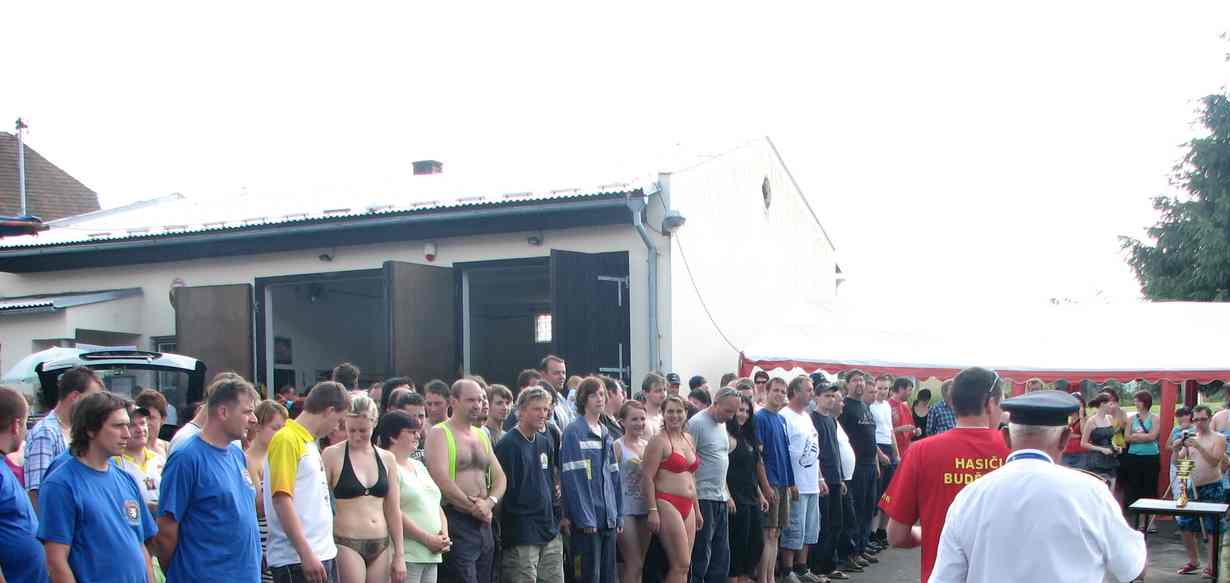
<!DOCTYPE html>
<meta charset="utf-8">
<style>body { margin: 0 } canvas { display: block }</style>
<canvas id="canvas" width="1230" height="583"></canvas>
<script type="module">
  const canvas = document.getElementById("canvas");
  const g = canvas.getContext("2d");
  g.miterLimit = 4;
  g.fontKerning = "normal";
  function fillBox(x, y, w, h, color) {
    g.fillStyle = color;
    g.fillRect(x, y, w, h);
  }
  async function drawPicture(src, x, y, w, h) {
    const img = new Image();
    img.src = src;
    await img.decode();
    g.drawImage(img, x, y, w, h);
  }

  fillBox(0, 0, 1230, 583, "#FFFFFF");
  await drawPicture("pic1.png", 0, 0, 1230, 583);
</script>
